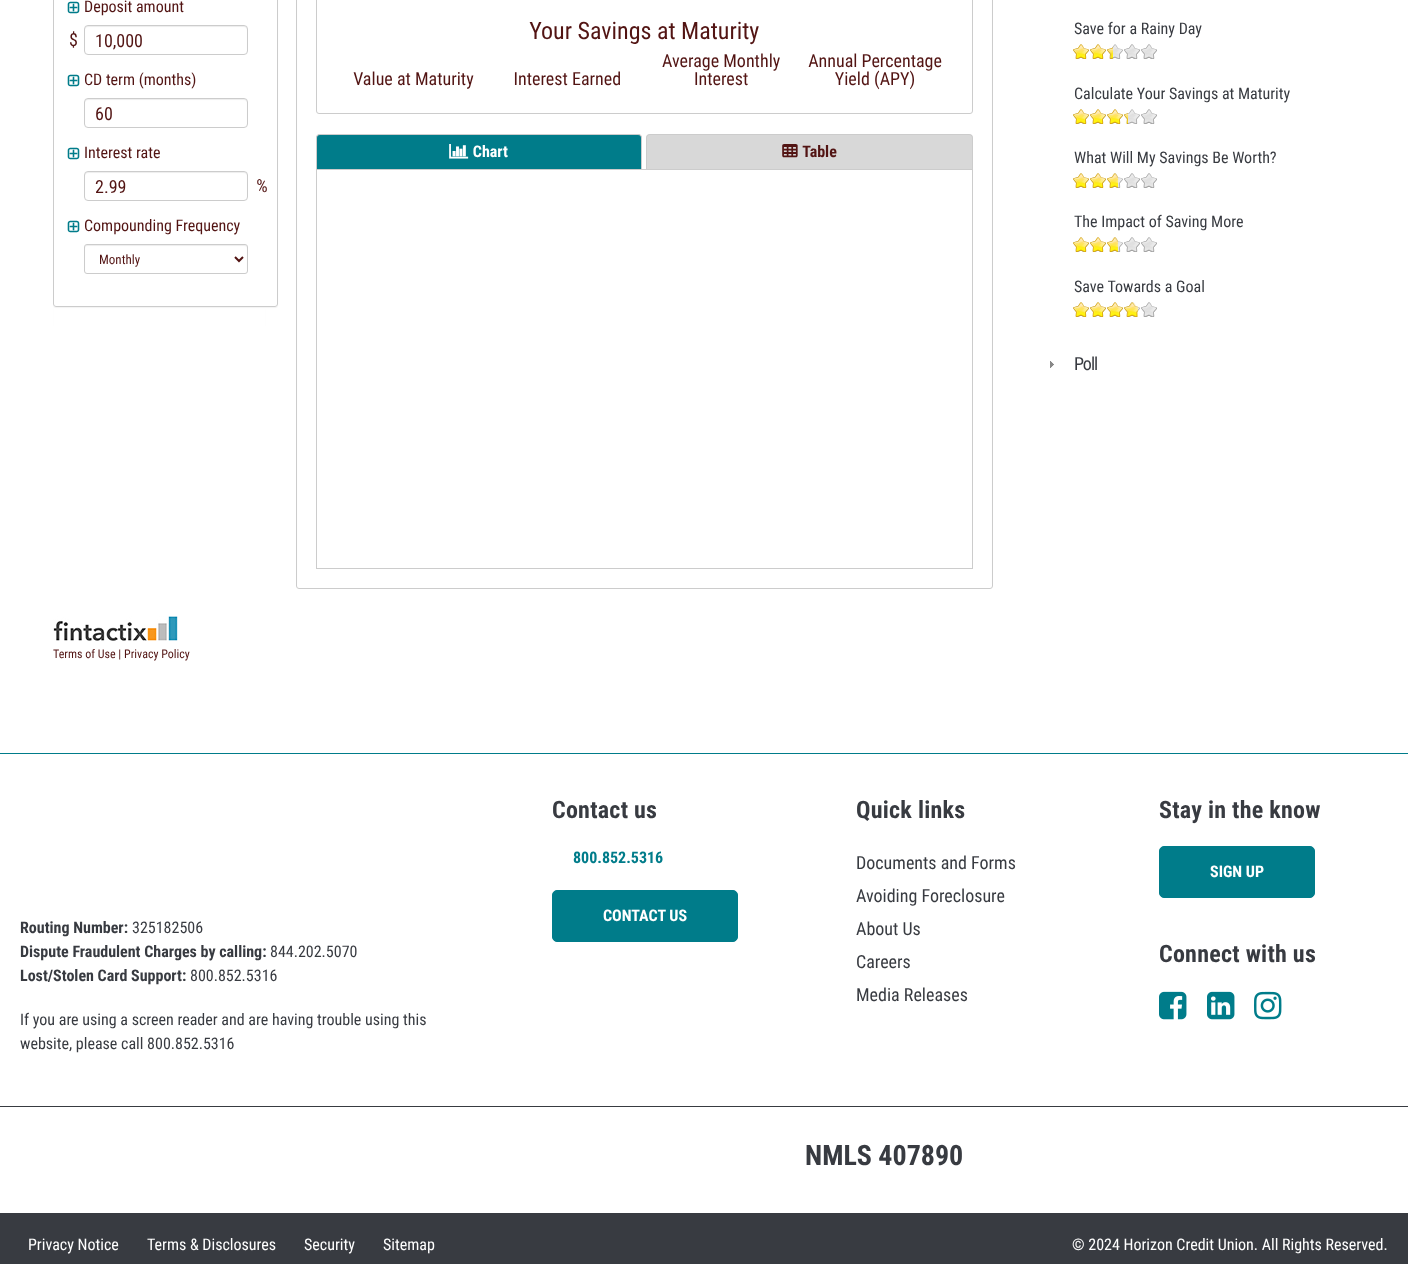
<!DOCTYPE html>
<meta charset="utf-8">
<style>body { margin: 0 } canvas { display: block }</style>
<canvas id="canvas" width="1408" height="1264"></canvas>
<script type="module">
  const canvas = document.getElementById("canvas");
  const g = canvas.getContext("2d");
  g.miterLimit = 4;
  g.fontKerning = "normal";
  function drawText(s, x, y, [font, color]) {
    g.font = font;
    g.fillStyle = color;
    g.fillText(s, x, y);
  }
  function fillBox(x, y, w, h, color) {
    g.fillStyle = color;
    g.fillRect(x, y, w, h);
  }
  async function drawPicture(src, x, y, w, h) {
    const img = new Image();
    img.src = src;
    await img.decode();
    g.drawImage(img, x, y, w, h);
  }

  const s1 = ["16px Roboto Condensed", "#383B41"];
  const s2 = ["18px Roboto Condensed", "#383B41"];
  const s3 = ["bold 24px Roboto Condensed", "#383B41"];
  const s4 = ["bold 16px Roboto Condensed", "#007C8A"];
  const s5 = ["bold 16px Roboto Condensed", "#FFFFFF"];
  const s6 = ["bold 16px Roboto Condensed", "#383B41"];
  const s7 = ["bold 28px Roboto Condensed", "#383B41"];
  const s8 = ["16px Roboto Condensed", "#FFFFFF"];

  fillBox(0, 0, 1408, 1264, "#FFFFFF");
  await drawPicture("pic1.png", 53, 0, 940, 661);
  drawText("Save for a Rainy Day", 1074, 34, s1);
  await drawPicture("pic2.png", 1073, 44, 16, 15);
  await drawPicture("pic3.png", 1073, 44, 16, 15);
  await drawPicture("pic2.png", 1090, 44, 16, 15);
  await drawPicture("pic3.png", 1090, 44, 16, 15);
  await drawPicture("pic2.png", 1107, 44, 16, 15);
  await drawPicture("pic4.png", 1107, 46, 6, 13);
  await drawPicture("pic2.png", 1124, 44, 16, 15);
  await drawPicture("pic5.png", 1124, 44, 16, 15);
  await drawPicture("pic2.png", 1141, 44, 16, 15);
  await drawPicture("pic5.png", 1141, 44, 16, 15);
  drawText("Calculate Your Savings at Maturity", 1074, 99, s1);
  await drawPicture("pic2.png", 1073, 109, 16, 15);
  await drawPicture("pic3.png", 1073, 109, 16, 15);
  await drawPicture("pic2.png", 1090, 109, 16, 15);
  await drawPicture("pic3.png", 1090, 109, 16, 15);
  await drawPicture("pic2.png", 1107, 109, 16, 15);
  await drawPicture("pic3.png", 1107, 109, 16, 15);
  await drawPicture("pic2.png", 1124, 109, 16, 15);
  await drawPicture("pic6.png", 1124, 113, 4, 11);
  await drawPicture("pic2.png", 1141, 109, 16, 15);
  await drawPicture("pic5.png", 1141, 109, 16, 15);
  drawText("What Will My Savings Be Worth?", 1074, 163, s1);
  await drawPicture("pic2.png", 1073, 173, 16, 15);
  await drawPicture("pic3.png", 1073, 173, 16, 15);
  await drawPicture("pic2.png", 1090, 173, 16, 15);
  await drawPicture("pic3.png", 1090, 173, 16, 15);
  await drawPicture("pic2.png", 1107, 173, 16, 15);
  await drawPicture("pic7.png", 1107, 173, 11, 15);
  await drawPicture("pic2.png", 1124, 173, 16, 15);
  await drawPicture("pic5.png", 1124, 173, 16, 15);
  await drawPicture("pic2.png", 1141, 173, 16, 15);
  await drawPicture("pic5.png", 1141, 173, 16, 15);
  drawText("The Impact of Saving More", 1074, 227, s1);
  await drawPicture("pic2.png", 1073, 237, 16, 15);
  await drawPicture("pic3.png", 1073, 237, 16, 15);
  await drawPicture("pic2.png", 1090, 237, 16, 15);
  await drawPicture("pic3.png", 1090, 237, 16, 15);
  await drawPicture("pic2.png", 1107, 237, 16, 15);
  await drawPicture("pic7.png", 1107, 237, 11, 15);
  await drawPicture("pic2.png", 1124, 237, 16, 15);
  await drawPicture("pic5.png", 1124, 237, 16, 15);
  await drawPicture("pic2.png", 1141, 237, 16, 15);
  await drawPicture("pic5.png", 1141, 237, 16, 15);
  drawText("Save Towards a Goal", 1074, 292, s1);
  await drawPicture("pic2.png", 1073, 302, 16, 15);
  await drawPicture("pic3.png", 1073, 302, 16, 15);
  await drawPicture("pic2.png", 1090, 302, 16, 15);
  await drawPicture("pic3.png", 1090, 302, 16, 15);
  await drawPicture("pic2.png", 1107, 302, 16, 15);
  await drawPicture("pic3.png", 1107, 302, 16, 15);
  await drawPicture("pic2.png", 1124, 302, 16, 15);
  await drawPicture("pic8.png", 1124, 302, 14, 15);
  await drawPicture("pic2.png", 1141, 302, 16, 15);
  await drawPicture("pic5.png", 1141, 302, 16, 15);
  await drawPicture("pic9.png", 1050, 361, 4, 7);
  g.letterSpacing = "-1px";
  drawText("Poll", 1074, 370, s2);
  fillBox(0, 753, 1408, 1, "#007C8A");
  g.letterSpacing = "0.25px";
  drawText("Contact us", 552, 818, s3);
  g.letterSpacing = "0px";
  drawText("800.852.5316", 573, 863, s4);
  g.beginPath();
  g.roundRect(552.5, 890.5, 185, 51, 4.5);
  g.fill();
  g.strokeStyle = "#007C8A";
  g.stroke();
  drawText("CONTACT US", 603, 921, s5);
  g.letterSpacing = "0.25px";
  drawText("Quick links", 856, 818, s3);
  g.letterSpacing = "0px";
  drawText("Documents and Forms", 856, 869, s2);
  drawText("Avoiding Foreclosure", 856, 902, s2);
  drawText("About Us", 856, 935, s2);
  drawText("Careers", 856, 968, s2);
  drawText("Media Releases", 856, 1001, s2);
  g.letterSpacing = "0.25px";
  drawText("Stay in the know", 1159, 818, s3);
  g.fillStyle = "#007C8A";
  g.beginPath();
  g.roundRect(1159.5, 846.5, 155, 51, 4.5);
  g.fill();
  g.stroke();
  g.letterSpacing = "0px";
  drawText("SIGN UP", 1210, 877, s5);
  g.letterSpacing = "0.25px";
  drawText("Connect with us", 1159, 962, s3);
  await drawPicture("pic10.png", 1159, 991, 28, 29);
  await drawPicture("pic11.png", 1207, 991, 28, 29);
  await drawPicture("pic12.png", 1254, 991, 28, 29);
  g.letterSpacing = "0px";
  drawText("Routing Number:", 20, 933, s6);
  drawText("325182506", 132, 933, s1);
  drawText("Dispute Fraudulent Charges by calling:", 20, 957, s6);
  drawText("844.202.5070", 270, 957, s1);
  drawText("Lost/Stolen Card Support:", 20, 981, s6);
  drawText("800.852.5316", 190, 981, s1);
  drawText("If you are using a screen reader and are having trouble using this", 20, 1025, s1);
  drawText("website, please call 800.852.5316", 20, 1049, s1);
  fillBox(0, 1106, 1408, 1, "#383B41");
  drawText("NMLS 407890", 805, 1165, s7);
  fillBox(0, 1213, 1408, 51, "#383B41");
  drawText("Privacy Notice", 28, 1250, s8);
  drawText("Terms & Disclosures", 147, 1250, s8);
  drawText("Security", 304, 1250, s8);
  drawText("Sitemap", 383, 1250, s8);
  drawText("© 2024 Horizon Credit Union. All Rights Reserved.", 1072, 1250, s8);
</script>
